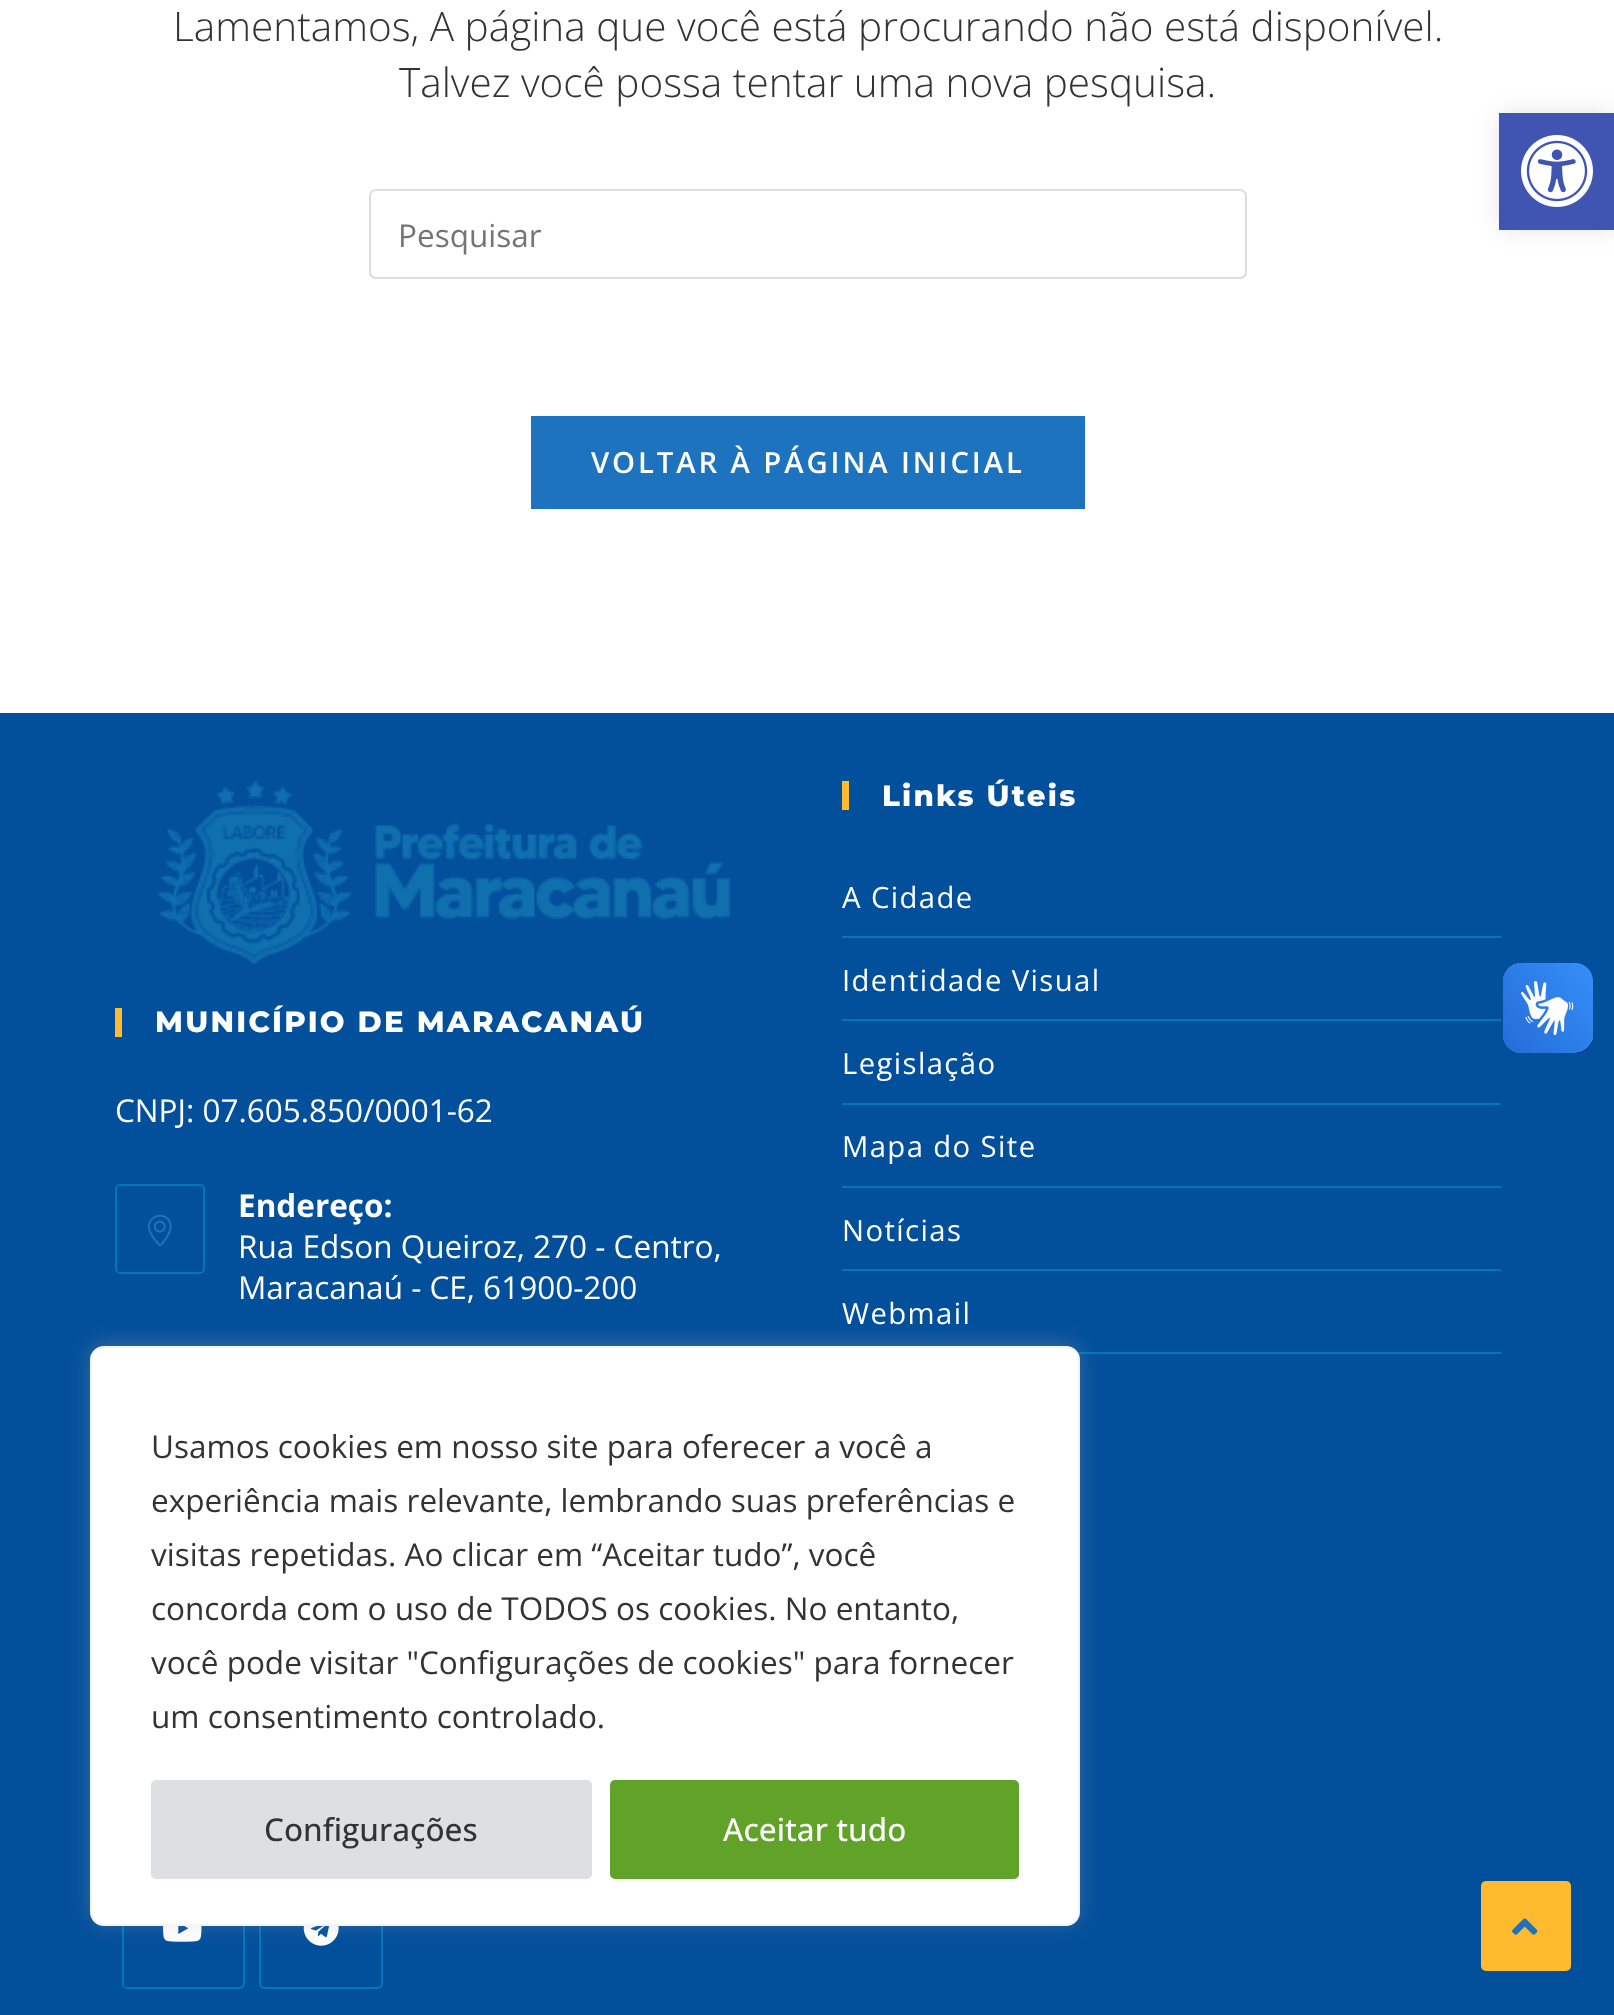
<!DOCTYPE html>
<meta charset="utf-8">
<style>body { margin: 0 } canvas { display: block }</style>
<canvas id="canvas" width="1614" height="2015"></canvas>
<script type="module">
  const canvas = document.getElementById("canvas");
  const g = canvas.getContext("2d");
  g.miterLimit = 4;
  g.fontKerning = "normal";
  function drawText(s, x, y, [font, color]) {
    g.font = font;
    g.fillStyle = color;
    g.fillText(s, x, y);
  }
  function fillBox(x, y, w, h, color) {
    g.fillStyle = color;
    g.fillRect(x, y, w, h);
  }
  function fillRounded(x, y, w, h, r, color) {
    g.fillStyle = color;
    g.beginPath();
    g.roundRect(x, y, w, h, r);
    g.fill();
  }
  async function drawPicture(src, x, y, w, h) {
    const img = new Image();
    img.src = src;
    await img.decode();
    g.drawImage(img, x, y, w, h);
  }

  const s1 = ["300 40.5px Open Sans", "#333333"];
  const s2 = ["31.5px Open Sans", "#757575"];
  const s3 = ["600 29.25px Open Sans", "#FFFFFF"];
  const s4 = ["800 29.25px Montserrat", "#FFFFFF"];
  const s5 = ["31.5px Open Sans", "#FFFFFF"];
  const s6 = ["bold 31.5px Open Sans", "#FFFFFF"];
  const s7 = ["29.25px Open Sans", "#FFFFFF"];
  const s8 = ["31.5px Open Sans", "#333333"];
  const s9 = ["500 31.5px Open Sans", "#333333"];
  const s10 = ["500 31.5px Open Sans", "#FFFFFF"];

  fillBox(0, 0, 1614, 2015, "#FFFFFF");
  drawText("Lamentamos, A página que você está procurando não está disponível.", 173, 41, s1);
  drawText("Talvez você possa tentar uma nova pesquisa.", 399, 97, s1);
  g.beginPath();
  g.roundRect(370, 190, 876, 88, 6);
  g.strokeStyle = "#DDDDDD";
  g.lineWidth = 2;
  g.stroke();
  drawText("Pesquisar", 398, 247, s2);
  fillBox(531, 416, 554, 93, "#1E73BE");
  g.letterSpacing = "2.9px";
  drawText("VOLTAR À PÁGINA INICIAL", 591, 473, s3);
  fillBox(0, 713, 1614, 1302, "#024F9C");
  await drawPicture("pic1.png", 158, 781, 573, 183);
  fillBox(115, 1008, 7, 29, "#FDBB2D");
  g.letterSpacing = "2.25px";
  drawText("MUNICÍPIO DE MARACANAÚ", 155, 1032, s4);
  g.letterSpacing = "0px";
  drawText("CNPJ: 07.605.850/0001-62", 115, 1122, s5);
  g.beginPath();
  g.roundRect(116, 1185, 88, 88, 4);
  g.strokeStyle = "#0176BC";
  g.stroke();
  await drawPicture("pic2.png", 148, 1214, 24, 33);
  drawText("Endereço:", 238, 1217, s6);
  drawText("Rua Edson Queiroz, 270 - Centro,", 238, 1258, s5);
  drawText("Maracanaú - CE, 61900-200", 238, 1299, s5);
  fillBox(842, 781, 7, 29, "#FDBB2D");
  g.letterSpacing = "2.25px";
  drawText("Links Úteis", 882, 806, s4);
  fillBox(842, 936, 659, 2, "#0176BC");
  g.letterSpacing = "1.4px";
  drawText("A Cidade", 842, 908, s7);
  fillBox(842, 1019, 659, 2, "#0176BC");
  drawText("Identidade Visual", 842, 991, s7);
  fillBox(842, 1103, 659, 2, "#0176BC");
  drawText("Legislação", 842, 1074, s7);
  fillBox(842, 1186, 659, 2, "#0176BC");
  drawText("Mapa do Site", 842, 1157, s7);
  fillBox(842, 1269, 659, 2, "#0176BC");
  drawText("Notícias", 842, 1241, s7);
  fillBox(1077, 1352, 424, 2, "#0176BC");
  drawText("Webmail", 842, 1324, s7);
  g.beginPath();
  g.roundRect(123, 1866, 121, 122, 4);
  g.stroke();
  await drawPicture("pic3.png", 163, 1926, 39, 16);
  g.beginPath();
  g.roundRect(260, 1866, 122, 122, 4);
  g.stroke();
  await drawPicture("pic4.png", 303, 1926, 36, 20);
  g.fillStyle = "rgba(0, 0, 0, 0.1)";
  g.filter = "blur(11px)";
  g.beginPath();
  g.rect(1499, 113, 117, 117);
  g.fill();
  g.filter = "none";
  fillBox(1499, 113, 115, 117, "#4054B2");
  await drawPicture("pic5.png", 1521, 135, 72, 72);
  await drawPicture("pic6.png", 1503, 963, 90, 90);
  await drawPicture("pic7.png", 1503, 963, 90, 90);
  g.fillStyle = "rgba(172, 171, 171, 0.3)";
  g.filter = "blur(11px)";
  g.beginPath();
  g.roundRect(90, 1343, 990, 581, 14);
  g.fill();
  g.filter = "none";
  g.fillStyle = "#FFFFFF";
  g.beginPath();
  g.roundRect(91, 1347, 988, 578, 13);
  g.fill();
  g.strokeStyle = "#F4F4F4";
  g.stroke();
  g.letterSpacing = "0px";
  drawText("Usamos cookies em nosso site para oferecer a você a", 151, 1458, s8);
  drawText("experiência mais relevante, lembrando suas preferências e", 151, 1512, s8);
  drawText("visitas repetidas. Ao clicar em “Aceitar tudo”, você", 151, 1566, s8);
  drawText("concorda com o uso de TODOS os cookies. No entanto,", 151, 1620, s8);
  drawText("você pode visitar \"Configurações de cookies\" para fornecer", 151, 1674, s8);
  drawText("um consentimento controlado.", 151, 1728, s8);
  g.fillStyle = "#DEDFE0";
  g.beginPath();
  g.roundRect(153.5, 1782.5, 436, 94, 2.5);
  g.fill();
  g.strokeStyle = "#DEDFE0";
  g.lineWidth = 5;
  g.stroke();
  drawText("Configurações", 264, 1841, s9);
  g.fillStyle = "#61A229";
  g.beginPath();
  g.roundRect(612.5, 1782.5, 404, 94, 2.5);
  g.fill();
  g.strokeStyle = "#61A229";
  g.stroke();
  drawText("Aceitar tudo", 723, 1841, s10);
  fillRounded(1481, 1881, 90, 90, 5, "#FDBB2D");
  await drawPicture("pic8.png", 1512, 1918, 26, 17);
</script>
